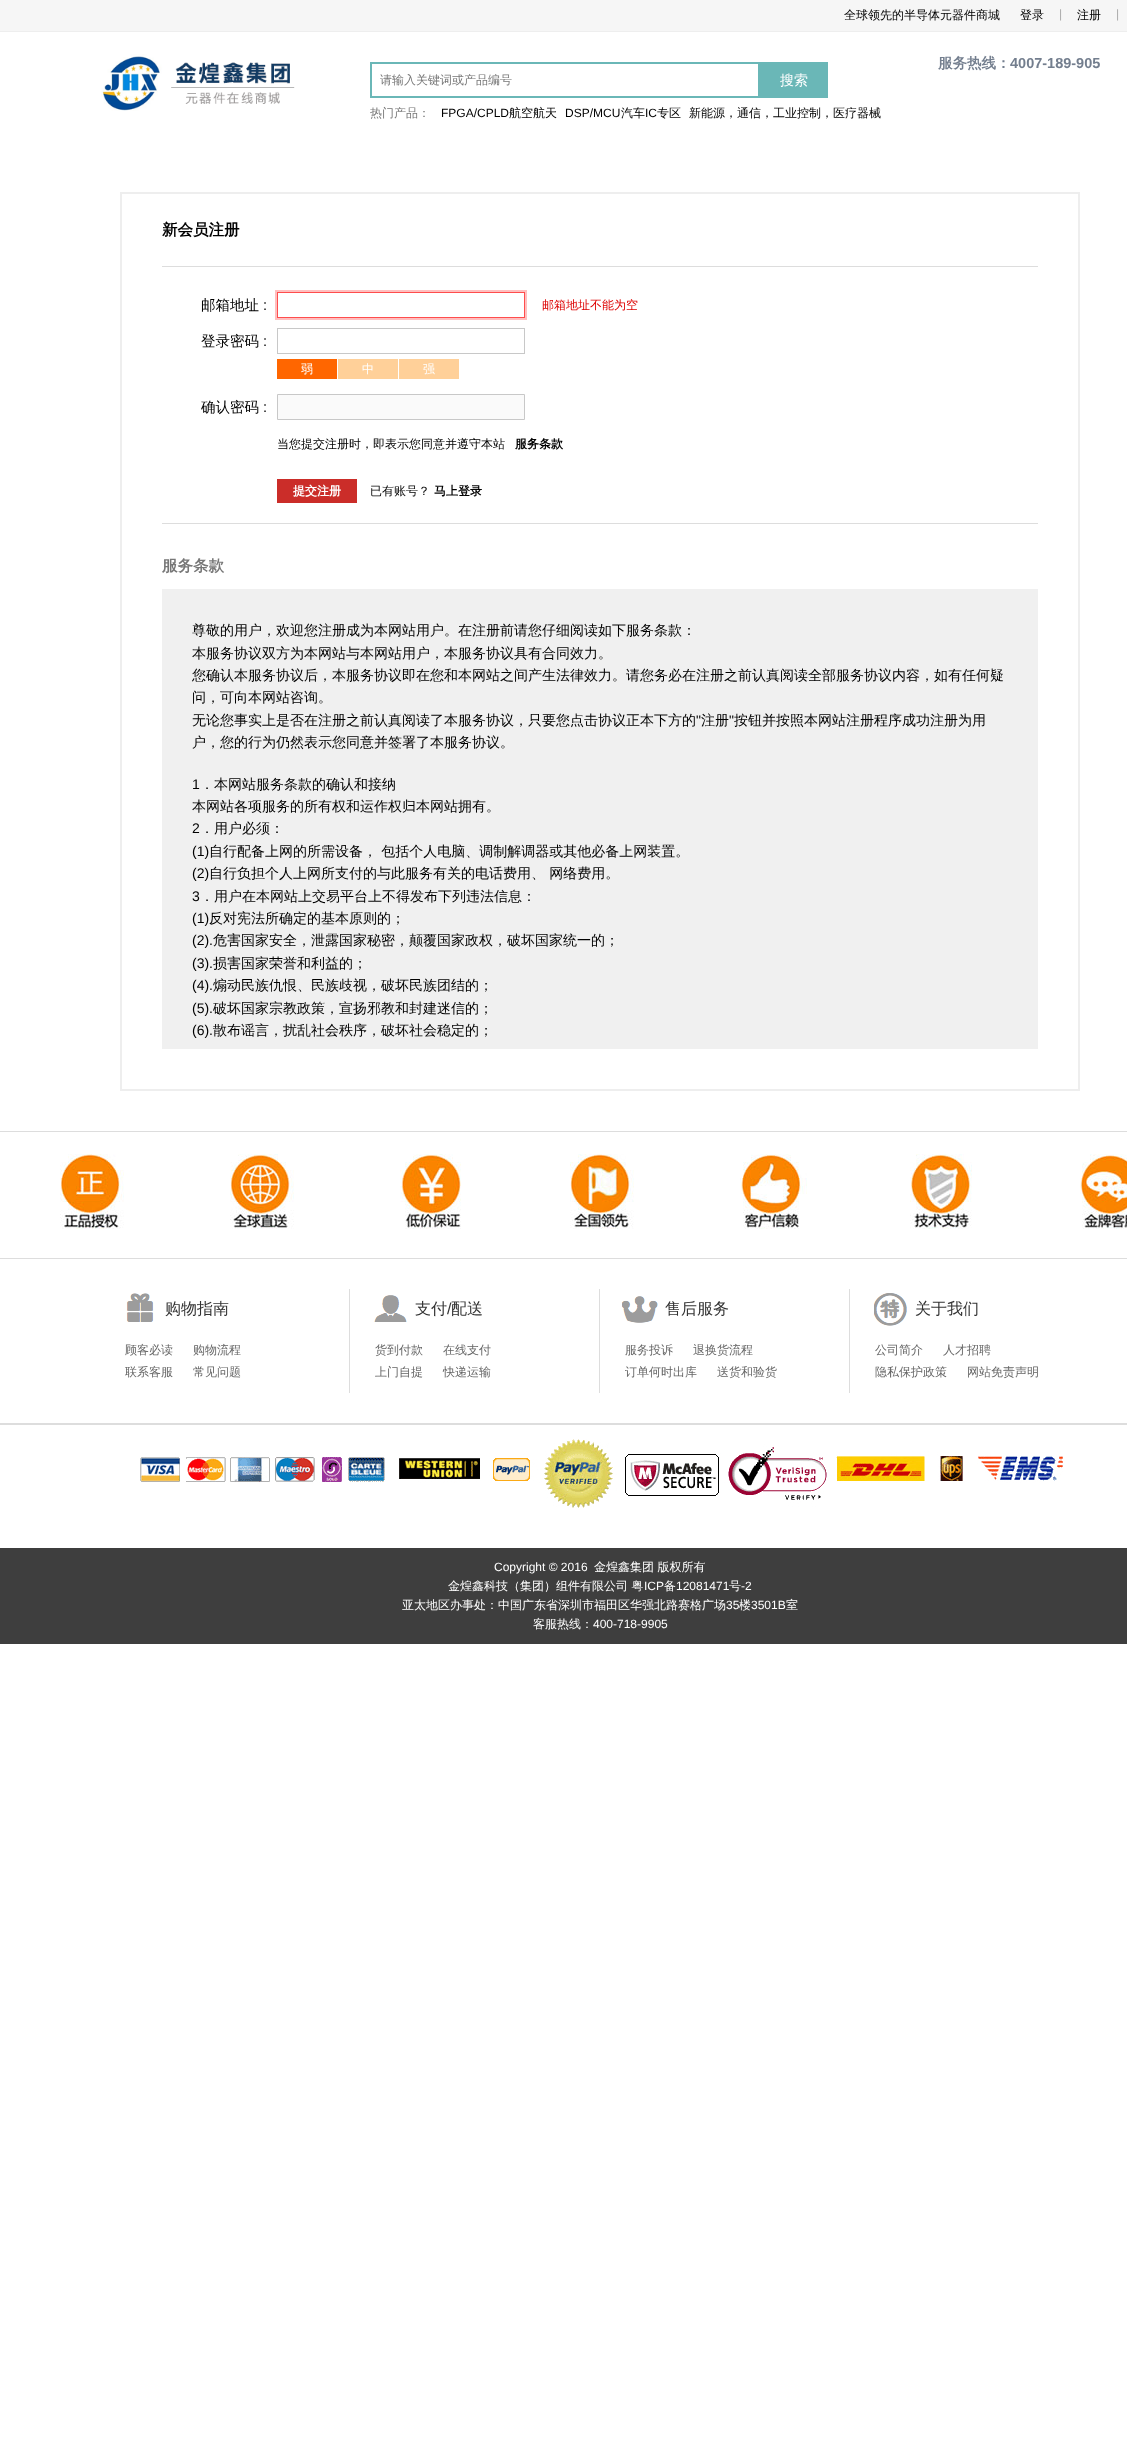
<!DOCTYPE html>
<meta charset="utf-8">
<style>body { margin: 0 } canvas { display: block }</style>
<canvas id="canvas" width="1127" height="2457"></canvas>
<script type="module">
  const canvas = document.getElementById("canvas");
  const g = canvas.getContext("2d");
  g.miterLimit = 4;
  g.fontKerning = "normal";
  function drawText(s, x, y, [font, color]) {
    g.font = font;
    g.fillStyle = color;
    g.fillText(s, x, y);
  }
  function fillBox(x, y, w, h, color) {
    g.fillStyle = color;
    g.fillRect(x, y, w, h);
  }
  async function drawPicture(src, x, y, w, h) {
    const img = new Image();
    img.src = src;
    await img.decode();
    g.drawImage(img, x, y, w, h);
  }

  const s1 = ["500 12px WenQuanYi Zen Hei", "#000000"];
  const s2 = ["12px Liberation Sans", "#AAAAAA"];
  const s3 = ["bold 14.5px WenQuanYi Zen Hei", "#737E8E"];
  const s4 = ["bold 14.5px Liberation Sans", "#737E8E"];
  const s5 = ["500 12px WenQuanYi Zen Hei", "#777777"];
  const s6 = ["500 14px WenQuanYi Zen Hei", "#FFFFFF"];
  const s7 = ["12px Liberation Sans", "#000000"];
  const s8 = ["bold 15.5px WenQuanYi Zen Hei", "#000000"];
  const s9 = ["500 14.5px WenQuanYi Zen Hei", "#000000"];
  const s10 = ["14.5px Liberation Sans", "#000000"];
  const s11 = ["500 12px WenQuanYi Zen Hei", "#DD0000"];
  const s12 = ["500 12px WenQuanYi Zen Hei", "#FFFFFF"];
  const s13 = ["bold 12px WenQuanYi Zen Hei", "#000000"];
  const s14 = ["bold 12px WenQuanYi Zen Hei", "#FFFFFF"];
  const s15 = ["bold 15.5px WenQuanYi Zen Hei", "#777777"];
  const s16 = ["500 14px WenQuanYi Zen Hei", "#000000"];
  const s17 = ["14px Liberation Sans", "#000000"];
  const s18 = ["500 16px WenQuanYi Zen Hei", "#333333"];
  const s19 = ["500 12px WenQuanYi Zen Hei", "#666666"];
  const s20 = ["16px Liberation Sans", "#333333"];
  const s21 = ["12px Liberation Sans", "#FFFFFF"];

  fillBox(0, 0, 1127, 2457, "#FFFFFF");
  fillBox(0, 0, 1127, 31, "#F6F6F6");
  fillBox(0, 31, 1127, 1, "#EEEEEE");
  drawText("全球领先的半导体元器件商城", 844, 19, s1);
  drawText("登录", 1020, 19, s1);
  drawText("|", 1059, 18, s2);
  drawText("注册", 1077, 19, s1);
  drawText("|", 1116, 18, s2);
  await drawPicture("pic1.png", 101, 54, 194, 57);
  drawText("服务热线：", 938, 68, s3);
  drawText("4007-189-905", 1010, 68, s4);
  g.strokeStyle = "#6AB7B7";
  g.lineWidth = 2;
  g.strokeRect(371, 63, 388, 34);
  drawText("请输入关键词或产品编号", 380, 84, s5);
  fillBox(760, 62, 68, 36, "#6AB7B7");
  drawText("搜索", 780, 85, s6);
  drawText("热门产品：", 370, 117, s5);
  drawText("FPGA/CPLD", 441, 117, s7);
  drawText("航空航天", 509, 117, s1);
  drawText("DSP/MCU", 565, 117, s7);
  drawText("汽车", 621, 117, s1);
  drawText("IC", 645, 117, s7);
  drawText("专区", 657, 117, s1);
  drawText("新能源，通信，工业控制，医疗器械", 689, 117, s1);
  g.strokeStyle = "#EEEEEE";
  g.strokeRect(121, 193, 958, 897);
  fillBox(162, 266, 876, 1, "#DDDDDD");
  drawText("新会员注册", 162, 235, s8);
  drawText("邮箱地址", 201, 310, s9);
  drawText(":", 263, 310, s10);
  g.strokeStyle = "#FF4D4D";
  g.lineWidth = 1;
  g.strokeRect(277.5, 292.5, 247, 25);
  g.strokeStyle = "#FFBFBF";
  g.lineWidth = 2;
  g.strokeRect(276, 291, 250, 28);
  drawText("邮箱地址不能为空", 542, 309, s11);
  drawText("登录密码", 201, 346, s9);
  drawText(":", 263, 346, s10);
  g.strokeStyle = "#C8C8C8";
  g.lineWidth = 1;
  g.strokeRect(277.5, 328.5, 247, 25);
  fillBox(338, 359, 121, 20, "#FFD099");
  fillBox(277, 359, 60, 20, "#FF6600");
  drawText("弱", 301, 373, s12);
  fillBox(398, 359, 1, 20, "#FFFFFF");
  drawText("中", 362, 373, s12);
  drawText("强", 423, 373, s12);
  drawText("确认密码", 201, 412, s9);
  drawText(":", 263, 412, s10);
  g.fillStyle = "#FAFAFA";
  g.beginPath();
  g.rect(277.5, 394.5, 247, 25);
  g.fill();
  g.stroke();
  drawText("当您提交注册时，即表示您同意并遵守本站", 277, 448, s1);
  drawText("服务条款", 515, 448, s13);
  fillBox(277, 479, 80, 24, "#CB2D29");
  drawText("提交注册", 293, 495, s14);
  drawText("已有账号？", 370, 495, s1);
  drawText("马上登录", 434, 495, s13);
  fillBox(162, 523, 876, 1, "#DDDDDD");
  drawText("服务条款", 162, 571, s15);
  fillBox(162, 589, 876, 460, "#F0F0F0");
  drawText("尊敬的用户，欢迎您注册成为本网站用户。在注册前请您仔细阅读如下服务条款：", 192, 635, s16);
  drawText("本服务协议双方为本网站与本网站用户，本服务协议具有合同效力。", 192, 658, s16);
  drawText("您确认本服务协议后，本服务协议即在您和本网站之间产生法律效力。请您务必在注册之前认真阅读全部服务协议内容，如有任何疑", 192, 680, s16);
  drawText("问，可向本网站咨询。", 192, 702, s16);
  drawText("无论您事实上是否在注册之前认真阅读了本服务协议，只要您点击协议正本下方的", 192, 725, s16);
  drawText("\"", 696, 725, s17);
  drawText("注册", 701, 725, s16);
  drawText("\"", 729, 725, s17);
  drawText("按钮并按照本网站注册程序成功注册为用", 734, 725, s16);
  drawText("户，您的行为仍然表示您同意并签署了本服务协议。", 192, 747, s16);
  drawText("1", 192, 789, s17);
  drawText("．本网站服务条款的确认和接纳", 200, 789, s16);
  drawText("本网站各项服务的所有权和运作权归本网站拥有。", 192, 811, s16);
  drawText("2", 192, 833, s17);
  drawText("．用户必须：", 200, 833, s16);
  drawText("(1)", 192, 856, s17);
  drawText("自行配备上网的所需设备， 包括个人电脑、调制解调器或其他必备上网装置。", 209, 856, s16);
  drawText("(2)", 192, 878, s17);
  drawText("自行负担个人上网所支付的与此服务有关的电话费用、 网络费用。", 209, 878, s16);
  drawText("3", 192, 901, s17);
  drawText("．用户在本网站上交易平台上不得发布下列违法信息：", 200, 901, s16);
  drawText("(1)", 192, 923, s17);
  drawText("反对宪法所确定的基本原则的；", 209, 923, s16);
  drawText("(2).", 192, 945, s17);
  drawText("危害国家安全，泄露国家秘密，颠覆国家政权，破坏国家统一的；", 213, 945, s16);
  drawText("(3).", 192, 968, s17);
  drawText("损害国家荣誉和利益的；", 213, 968, s16);
  drawText("(4).", 192, 990, s17);
  drawText("煽动民族仇恨、民族歧视，破坏民族团结的；", 213, 990, s16);
  drawText("(5).", 192, 1013, s17);
  drawText("破坏国家宗教政策，宣扬邪教和封建迷信的；", 213, 1013, s16);
  drawText("(6).", 192, 1035, s17);
  drawText("散布谣言，扰乱社会秩序，破坏社会稳定的；", 213, 1035, s16);
  fillBox(0, 1131, 1127, 1, "#DDDDDD");
  fillBox(0, 1258, 1127, 1, "#DDDDDD");
  await drawPicture("pic2.png", 60, 1154, 1067, 75);
  fillBox(349, 1289, 1, 104, "#DDDDDD");
  await drawPicture("pic3.png", 126, 1293, 28, 29);
  drawText("购物指南", 165, 1314, s18);
  drawText("顾客必读", 125, 1354, s19);
  drawText("购物流程", 193, 1354, s19);
  drawText("联系客服", 125, 1376, s19);
  drawText("常见问题", 193, 1376, s19);
  fillBox(599, 1289, 1, 104, "#DDDDDD");
  await drawPicture("pic4.png", 374, 1295, 33, 27);
  drawText("支付", 415, 1314, s18);
  drawText("/", 447, 1314, s20);
  drawText("配送", 451, 1314, s18);
  drawText("货到付款", 375, 1354, s19);
  drawText("在线支付", 443, 1354, s19);
  drawText("上门自提", 375, 1376, s19);
  drawText("快递运输", 443, 1376, s19);
  fillBox(849, 1289, 1, 104, "#DDDDDD");
  await drawPicture("pic5.png", 622, 1296, 36, 27);
  drawText("售后服务", 665, 1314, s18);
  drawText("服务投诉", 625, 1354, s19);
  drawText("退换货流程", 693, 1354, s19);
  drawText("订单何时出库", 625, 1376, s19);
  drawText("送货和验货", 717, 1376, s19);
  await drawPicture("pic6.png", 874, 1293, 33, 33);
  drawText("关于我们", 915, 1314, s18);
  drawText("公司简介", 875, 1354, s19);
  drawText("人才招聘", 943, 1354, s19);
  drawText("隐私保护政策", 875, 1376, s19);
  drawText("网站免责声明", 967, 1376, s19);
  fillBox(0, 1423, 1127, 2, "#DDDDDD");
  await drawPicture("pic7.png", 140, 1439, 923, 69);
  fillBox(0, 1548, 1127, 96, "#3E3E3E");
  drawText("Copyright © 2016", 494, 1571, s21);
  drawText("金煌鑫集团 版权所有", 594, 1571, s12);
  drawText("金煌鑫科技（集团）组件有限公司 粤", 448, 1590, s12);
  drawText("ICP", 644, 1590, s21);
  drawText("备", 664, 1590, s12);
  drawText("12081471", 676, 1590, s21);
  drawText("号", 729, 1590, s12);
  drawText("-2", 741, 1590, s21);
  drawText("亚太地区办事处：中国广东省深圳市福田区华强北路赛格广场", 402, 1609, s12);
  drawText("35", 726, 1609, s21);
  drawText("楼", 739, 1609, s12);
  drawText("3501B", 751, 1609, s21);
  drawText("室", 786, 1609, s12);
  drawText("客服热线：", 533, 1628, s12);
  drawText("400-718-9905", 593, 1628, s21);
</script>
